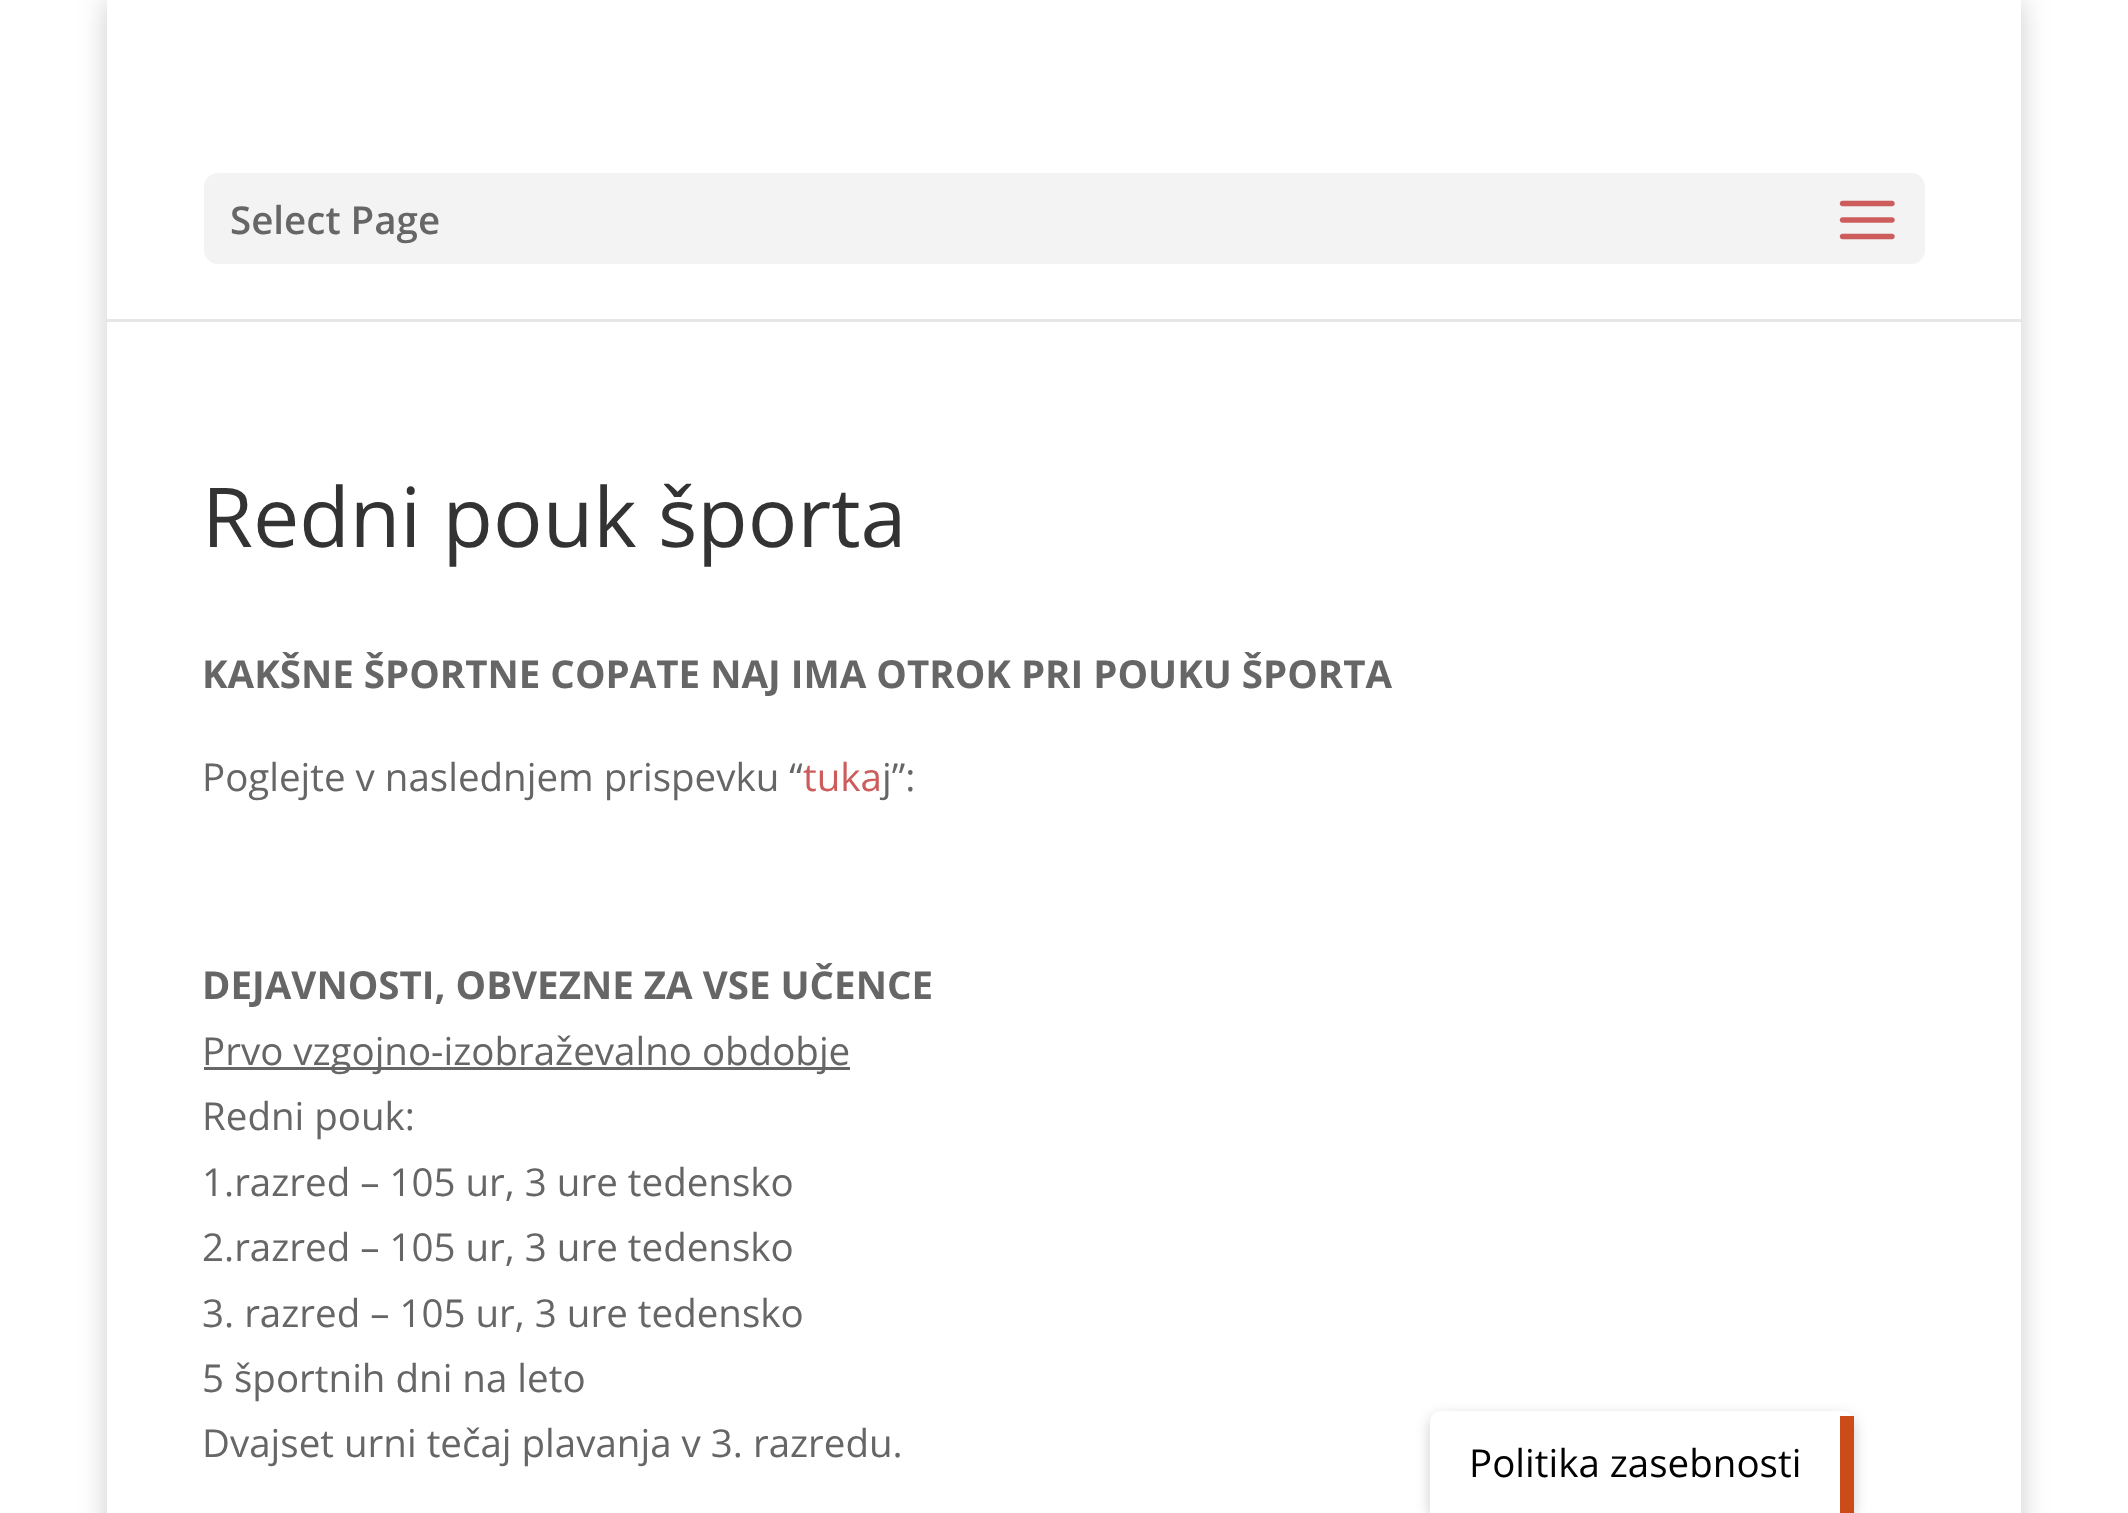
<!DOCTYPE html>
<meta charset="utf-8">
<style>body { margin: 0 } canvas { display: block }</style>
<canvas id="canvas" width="2128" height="1513"></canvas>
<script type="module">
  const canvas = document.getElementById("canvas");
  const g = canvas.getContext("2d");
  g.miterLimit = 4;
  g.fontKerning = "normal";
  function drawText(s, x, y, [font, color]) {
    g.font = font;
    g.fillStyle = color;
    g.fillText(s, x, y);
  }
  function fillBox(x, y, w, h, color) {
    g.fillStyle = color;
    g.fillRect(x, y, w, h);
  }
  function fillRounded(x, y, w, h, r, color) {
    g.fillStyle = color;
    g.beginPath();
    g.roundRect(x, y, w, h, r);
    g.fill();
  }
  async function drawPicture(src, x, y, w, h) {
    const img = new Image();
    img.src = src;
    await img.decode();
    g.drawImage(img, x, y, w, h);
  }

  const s1 = ["600 38.5px Open Sans", "#666666"];
  const s2 = ["82.5px Open Sans", "#333333"];
  const s3 = ["bold 38.5px Open Sans", "#666666"];
  const s4 = ["38.5px Open Sans", "#666666"];
  const s5 = ["38.5px Open Sans", "#CD5C5C"];
  const s6 = ["38.5px Open Sans", "#000000"];

  fillBox(0, 0, 2128, 1513, "#FFFFFF");
  g.fillStyle = "rgba(0, 0, 0, 0.2)";
  g.filter = "blur(14px)";
  g.beginPath();
  g.rect(107, 0, 1914, 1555);
  g.fill();
  g.filter = "none";
  g.fillStyle = "#E6E6E6";
  g.beginPath();
  g.moveTo(107, 3);
  g.lineTo(107, 322);
  g.lineTo(2021, 322);
  g.lineTo(2021, 319);
  g.lineTo(107, 319);
  g.closePath();
  g.fill();
  fillBox(107, 0, 1914, 319, "#FFFFFF");
  fillRounded(204, 173, 1721, 91, 14, "#F3F3F3");
  drawText("Select Page", 230, 234, s1);
  await drawPicture("pic1.png", 1839, 200, 56, 40);
  fillBox(107, 322, 1914, 1191, "#FFFFFF");
  drawText("Redni pouk športa", 202, 547, s2);
  drawText("KAKŠNE ŠPORTNE COPATE NAJ IMA OTROK PRI POUKU ŠPORTA", 202, 688, s3);
  drawText("Poglejte v naslednjem prispevku “", 202, 791, s4);
  drawText("tuka", 803, 791, s5);
  drawText("j”:", 882, 791, s4);
  drawText("DEJAVNOSTI, OBVEZNE ZA VSE UČENCE", 202, 999, s3);
  fillBox(204, 1067, 646, 3, "#666666");
  drawText("Prvo vzgojno-izobraževalno obdobje", 202, 1065, s4);
  drawText("Redni pouk:", 202, 1130, s4);
  drawText("1.razred – 105 ur, 3 ure tedensko", 202, 1196, s4);
  drawText("2.razred – 105 ur, 3 ure tedensko", 202, 1261, s4);
  drawText("3. razred – 105 ur, 3 ure tedensko", 202, 1327, s4);
  drawText("5 športnih dni na leto", 202, 1392, s4);
  drawText("Dvajset urni tečaj plavanja v 3. razredu.", 202, 1457, s4);
  g.fillStyle = "rgba(0, 0, 0, 0.2)";
  g.filter = "blur(7px)";
  g.beginPath();
  g.roundRect(1430, 1416, 424, 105, 11);
  g.fill();
  g.filter = "none";
  g.fillStyle = "#FFFFFF";
  g.beginPath();
  g.moveTo(1441, 1411);
  g.lineTo(1843, 1411);
  g.bezierCurveTo(1849, 1411, 1854, 1416, 1854, 1422);
  g.lineTo(1854, 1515);
  g.lineTo(1430, 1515);
  g.lineTo(1430, 1422);
  g.bezierCurveTo(1430, 1416, 1435, 1411, 1441, 1411);
  g.closePath();
  g.fill();
  fillBox(1840, 1416, 14, 97, "#CC4C19");
  drawText("Politika zasebnosti", 1469, 1477, s6);
</script>
